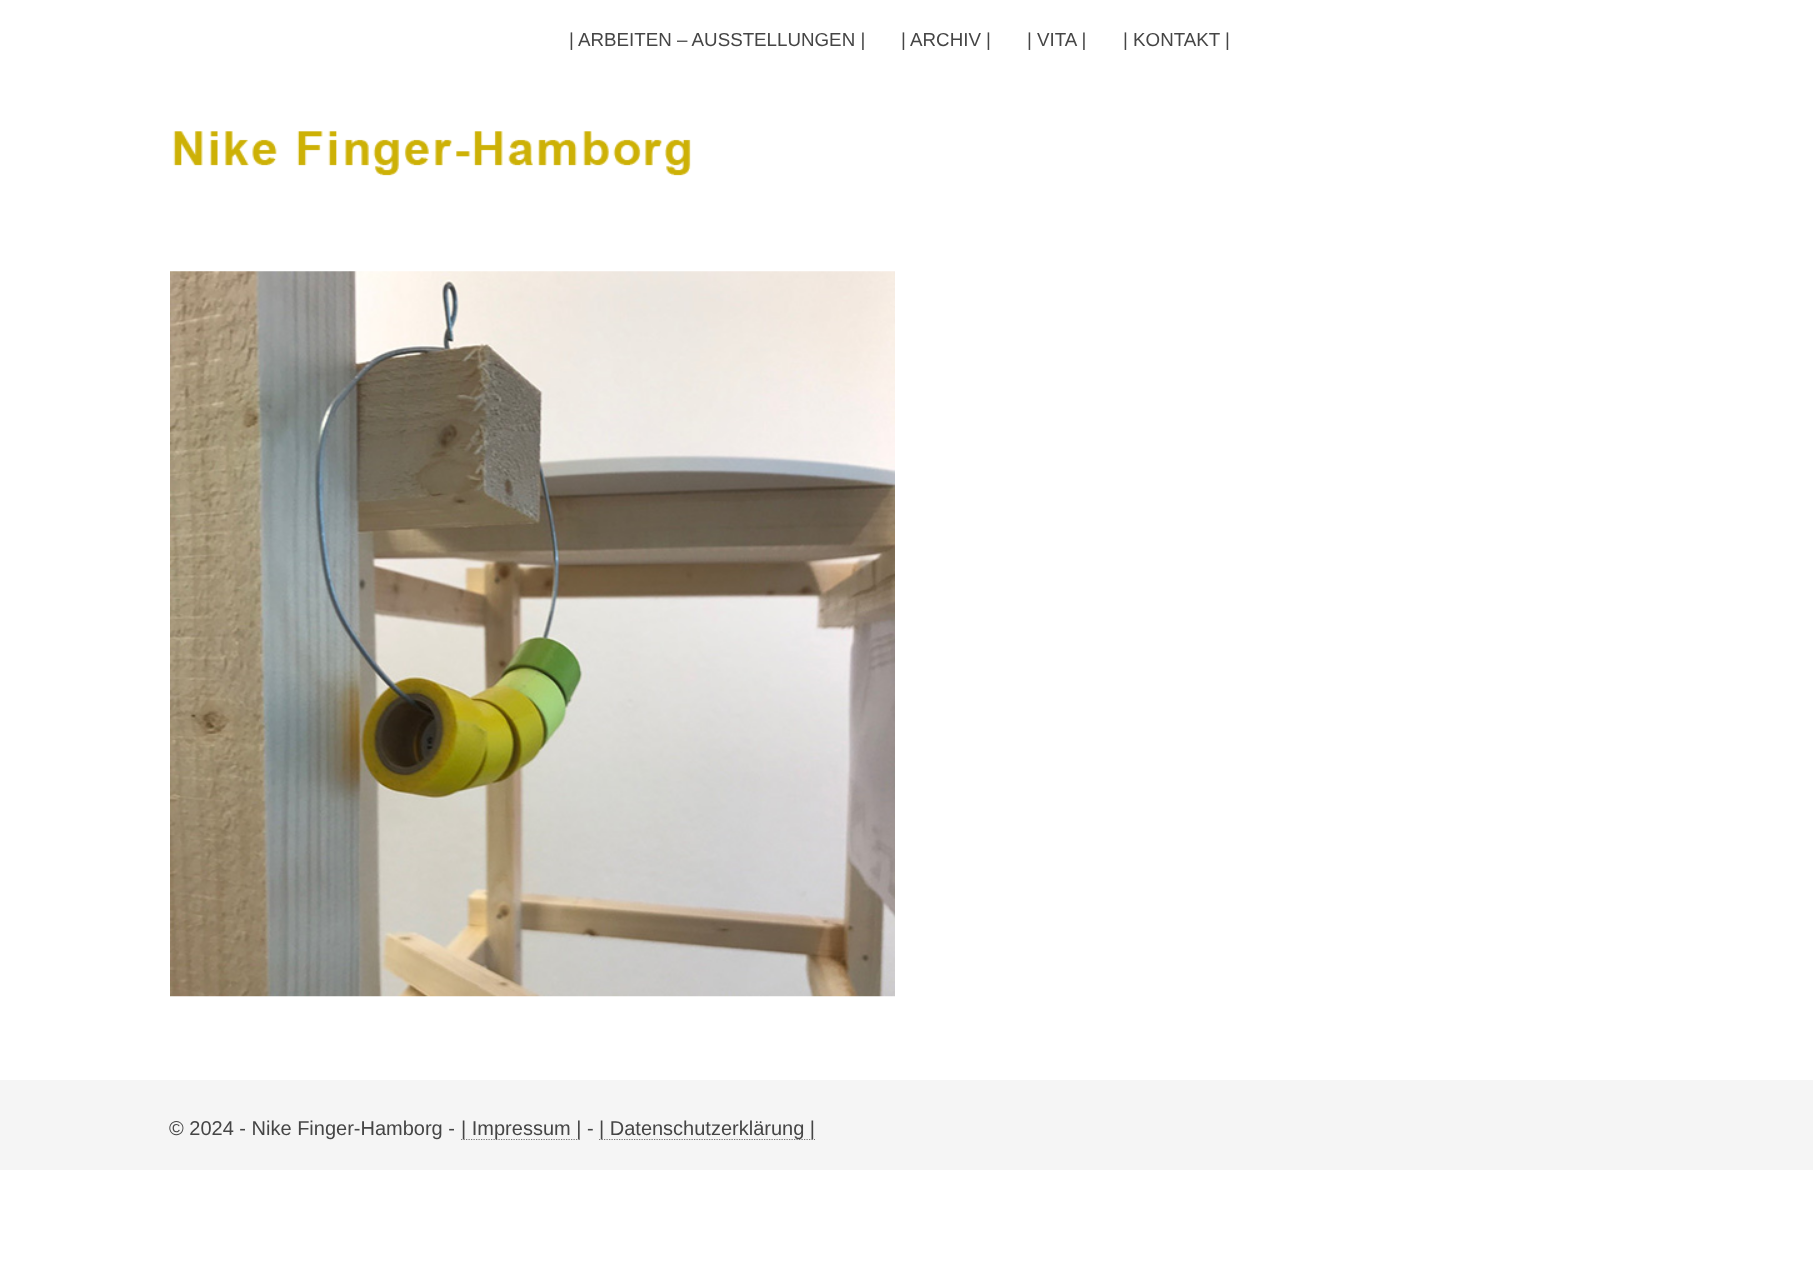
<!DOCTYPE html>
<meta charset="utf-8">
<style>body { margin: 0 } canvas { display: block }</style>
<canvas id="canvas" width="1813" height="1265"></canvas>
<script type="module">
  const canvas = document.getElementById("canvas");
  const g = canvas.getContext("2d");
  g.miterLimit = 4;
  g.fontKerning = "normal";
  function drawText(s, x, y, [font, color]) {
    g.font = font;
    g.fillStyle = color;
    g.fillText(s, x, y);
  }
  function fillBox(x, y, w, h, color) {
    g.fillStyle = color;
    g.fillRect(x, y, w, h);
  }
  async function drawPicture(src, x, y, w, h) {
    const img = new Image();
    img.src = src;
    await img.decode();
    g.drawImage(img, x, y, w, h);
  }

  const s1 = ["18.75px Liberation Sans", "#454545"];
  const s2 = ["20px Liberation Sans", "#454545"];

  fillBox(0, 0, 1813, 1265, "#FFFFFF");
  drawText("|", 569, 46, s1);
  drawText("ARBEITEN – AUSSTELLUNGEN |", 578, 46, s1);
  drawText("| ARCHIV |", 901, 46, s1);
  drawText("| VITA |", 1027, 46, s1);
  drawText("| KONTAKT |", 1123, 46, s1);
  await drawPicture("pic1.png", 173, 131, 518, 45);
  await drawPicture("pic2.png", 170, 271, 725, 726);
  fillBox(0, 1080, 1813, 90, "#F5F5F5");
  drawText("© 2024 - Nike Finger-Hamborg -", 169, 1135, s2);
  g.beginPath();
  g.moveTo(461, 1139.5);
  g.lineTo(581, 1139.5);
  g.strokeStyle = "#777777";
  g.lineWidth = 1.2;
  g.setLineDash([1.25, 1.25]);
  g.stroke();
  drawText("| Impressum | -", 461, 1135, s2);
  g.beginPath();
  g.moveTo(599, 1139.5);
  g.lineTo(815, 1139.5);
  g.stroke();
  drawText("| Datenschutzerklärung |", 599, 1135, s2);
</script>
